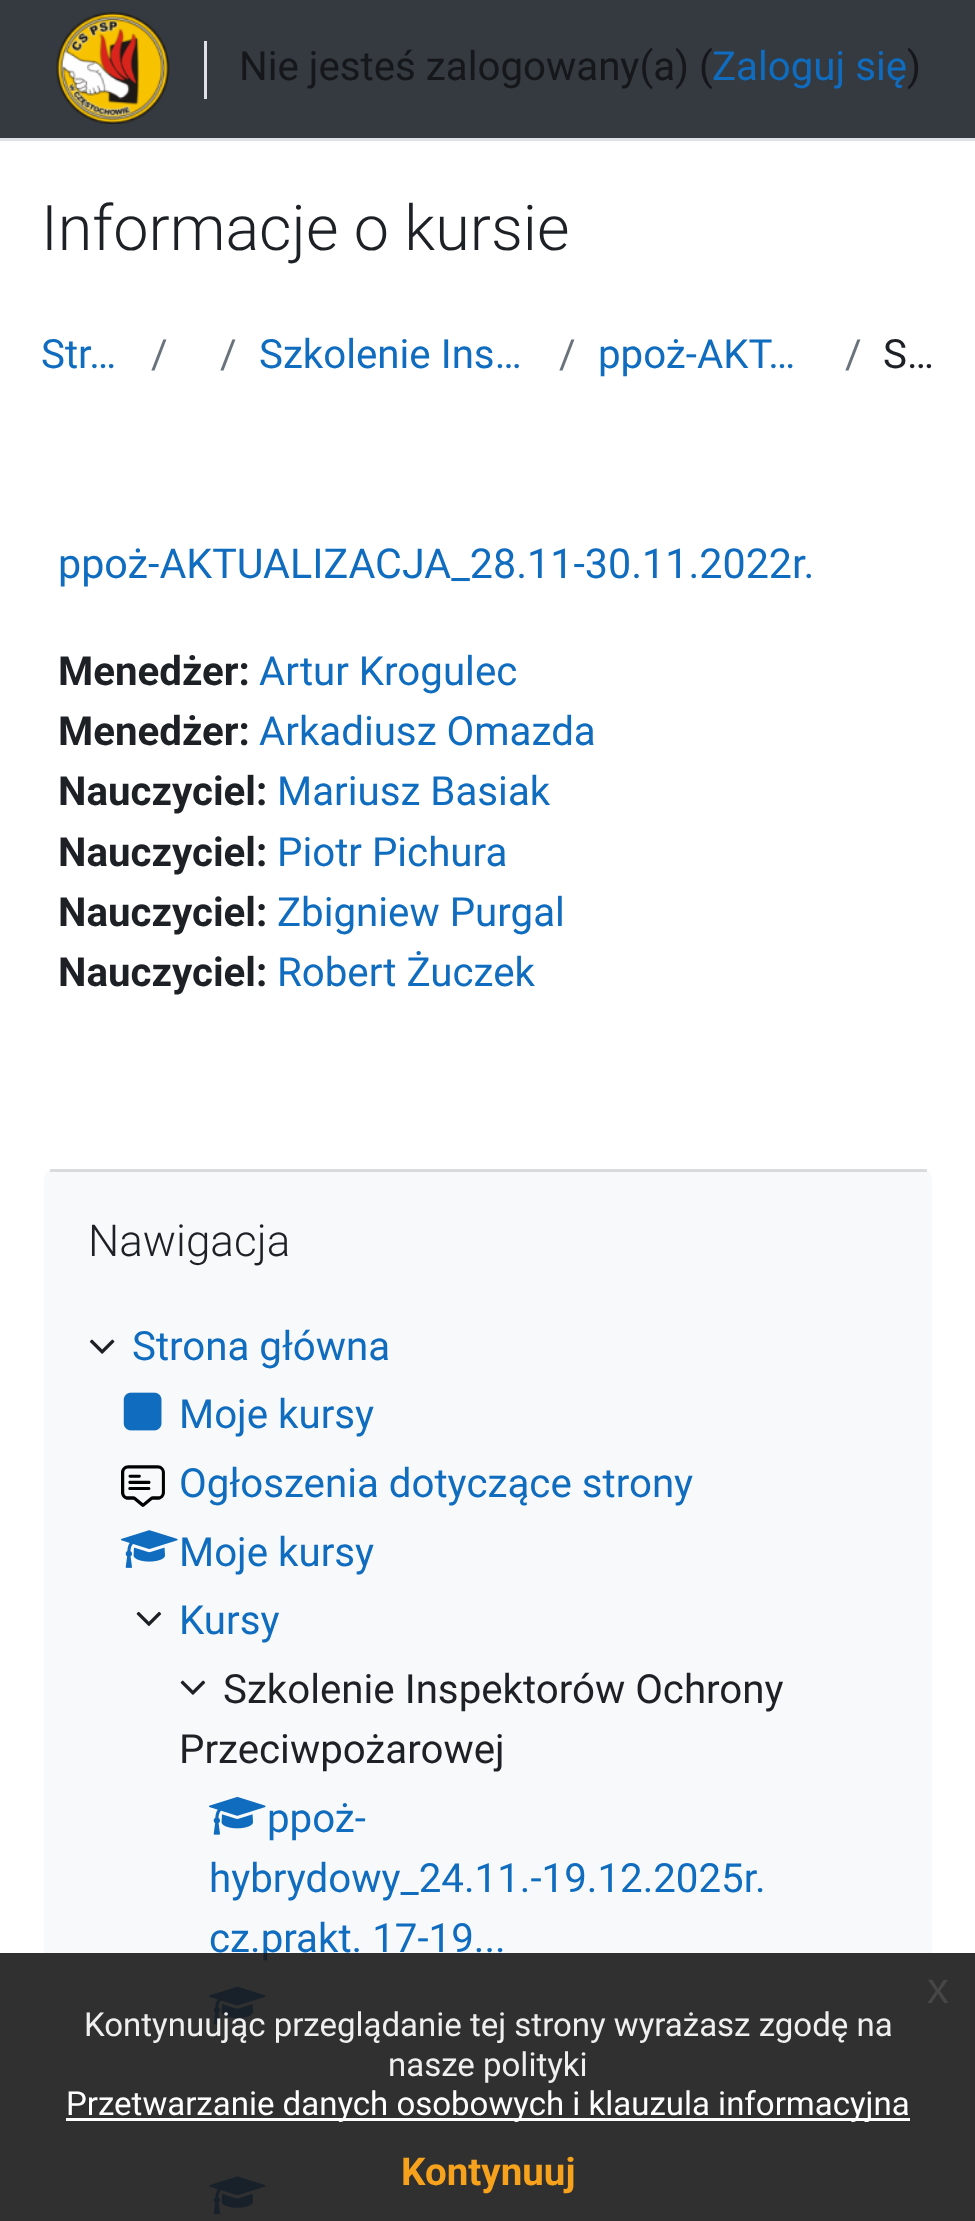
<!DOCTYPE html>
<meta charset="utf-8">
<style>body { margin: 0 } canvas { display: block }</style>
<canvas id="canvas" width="975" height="2221"></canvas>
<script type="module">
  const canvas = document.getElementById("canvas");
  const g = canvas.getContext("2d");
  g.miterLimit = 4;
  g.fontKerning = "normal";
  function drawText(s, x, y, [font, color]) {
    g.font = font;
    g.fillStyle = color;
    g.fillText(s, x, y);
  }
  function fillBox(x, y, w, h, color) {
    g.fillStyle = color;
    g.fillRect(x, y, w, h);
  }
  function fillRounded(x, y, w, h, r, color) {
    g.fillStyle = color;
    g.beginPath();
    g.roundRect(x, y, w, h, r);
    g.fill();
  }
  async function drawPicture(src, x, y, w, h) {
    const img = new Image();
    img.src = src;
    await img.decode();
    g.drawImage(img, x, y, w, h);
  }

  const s1 = ["40.25px Roboto", "#15171A"];
  const s2 = ["40.25px Roboto", "#0F6CBF"];
  const s3 = ["300 62.9px Roboto", "#1D2125"];
  const s4 = ["40.25px Roboto", "#6A737B"];
  const s5 = ["40.25px Roboto", "#1D2125"];
  const s6 = ["41.25px Roboto", "#0F6CBF"];
  const s7 = ["bold 40.25px Roboto", "#1D2125"];
  const s8 = ["300 44px Roboto", "#1D2125"];
  const s9 = ["44px Liberation Sans", "#474747"];
  const s10 = ["33px Roboto", "#EFEFEF"];
  const s11 = ["33px Roboto", "#FFFFFF"];
  const s12 = ["bold 38.5px Roboto", "#F6A21D"];

  fillBox(0, 0, 975, 2221, "#FFFFFF");
  fillBox(0, 0, 975, 138, "#343A40");
  fillBox(0, 138, 975, 3, "#DEE2E6");
  await drawPicture("pic1.png", 56, 12, 114, 112);
  fillBox(204, 41, 3, 58, "#DEE2E6");
  drawText("Nie jesteś zalogowany(a) (", 239, 80, s1);
  drawText("Zaloguj się", 712, 80, s2);
  drawText(")", 907, 80, s1);
  drawText("Informacje o kursie", 41, 250, s3);
  drawText("Str…", 41, 368, s2);
  drawText("/", 151, 368, s4);
  drawText("/", 220, 368, s4);
  drawText("Szkolenie Ins…", 259, 368, s2);
  drawText("/", 559, 368, s4);
  drawText("ppoż-AKT…", 598, 368, s2);
  drawText("/", 845, 368, s4);
  drawText("S…", 883, 368, s5);
  drawText("ppoż-AKTUALIZACJA_28.11-30.11.2022r.", 58, 578, s6);
  drawText("Menedżer:", 58, 685, s7);
  drawText("Artur Krogulec", 259, 685, s2);
  drawText("Menedżer:", 58, 745, s7);
  drawText("Arkadiusz Omazda", 259, 745, s2);
  drawText("Nauczyciel:", 58, 805, s7);
  drawText("Mariusz Basiak", 277, 805, s2);
  drawText("Nauczyciel:", 58, 866, s7);
  drawText("Piotr Pichura", 277, 866, s2);
  drawText("Nauczyciel:", 58, 926, s7);
  drawText("Zbigniew Purgal", 277, 926, s2);
  drawText("Nauczyciel:", 58, 986, s7);
  drawText("Robert Żuczek", 277, 986, s2);
  fillRounded(44, 1169, 888, 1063, 11, "#F8F9FA");
  fillBox(50, 1169, 877, 3, "rgba(0, 0, 0, 0.12)");
  drawText("Nawigacja", 88, 1256, s8);
  await drawPicture("pic2.png", 89, 1339, 26, 15);
  drawText("Strona główna", 132, 1360, s2);
  await drawPicture("pic3.png", 123, 1392, 39, 39);
  drawText("Moje kursy", 179, 1428, s2);
  await drawPicture("pic4.png", 121, 1465, 44, 42);
  drawText("Ogłoszenia dotyczące strony", 179, 1497, s2);
  await drawPicture("pic5.png", 121, 1530, 57, 38);
  drawText("Moje kursy", 179, 1566, s2);
  await drawPicture("pic6.png", 136, 1611, 26, 16);
  drawText("Kursy", 179, 1634, s2);
  await drawPicture("pic7.png", 180, 1680, 26, 15);
  drawText("Szkolenie Inspektorów Ochrony", 223, 1703, s5);
  drawText("Przeciwpożarowej", 179, 1763, s5);
  await drawPicture("pic8.png", 209, 1796, 57, 39);
  drawText("ppoż-", 267, 1832, s2);
  drawText("hybrydowy_24.11.-19.12.2025r.", 209, 1892, s2);
  drawText("cz.prakt. 17-19...", 209, 1952, s2);
  await drawPicture("pic9.png", 209, 1986, 57, 39);
  await drawPicture("pic10.png", 209, 2176, 57, 39);
  fillBox(0, 1953, 975, 268, "rgba(25, 25, 25, 0.9)");
  drawText("x", 927, 2003, s9);
  drawText("Kontynuując przeglądanie tej strony wyrażasz zgodę na", 84, 2036, s10);
  drawText("nasze polityki", 388, 2076, s10);
  fillBox(66, 2118, 844, 3, "#FFFFFF");
  drawText("Przetwarzanie danych osobowych i klauzula informacyjna", 66, 2115, s11);
  drawText("Kontynuuj", 401, 2185, s12);
</script>
